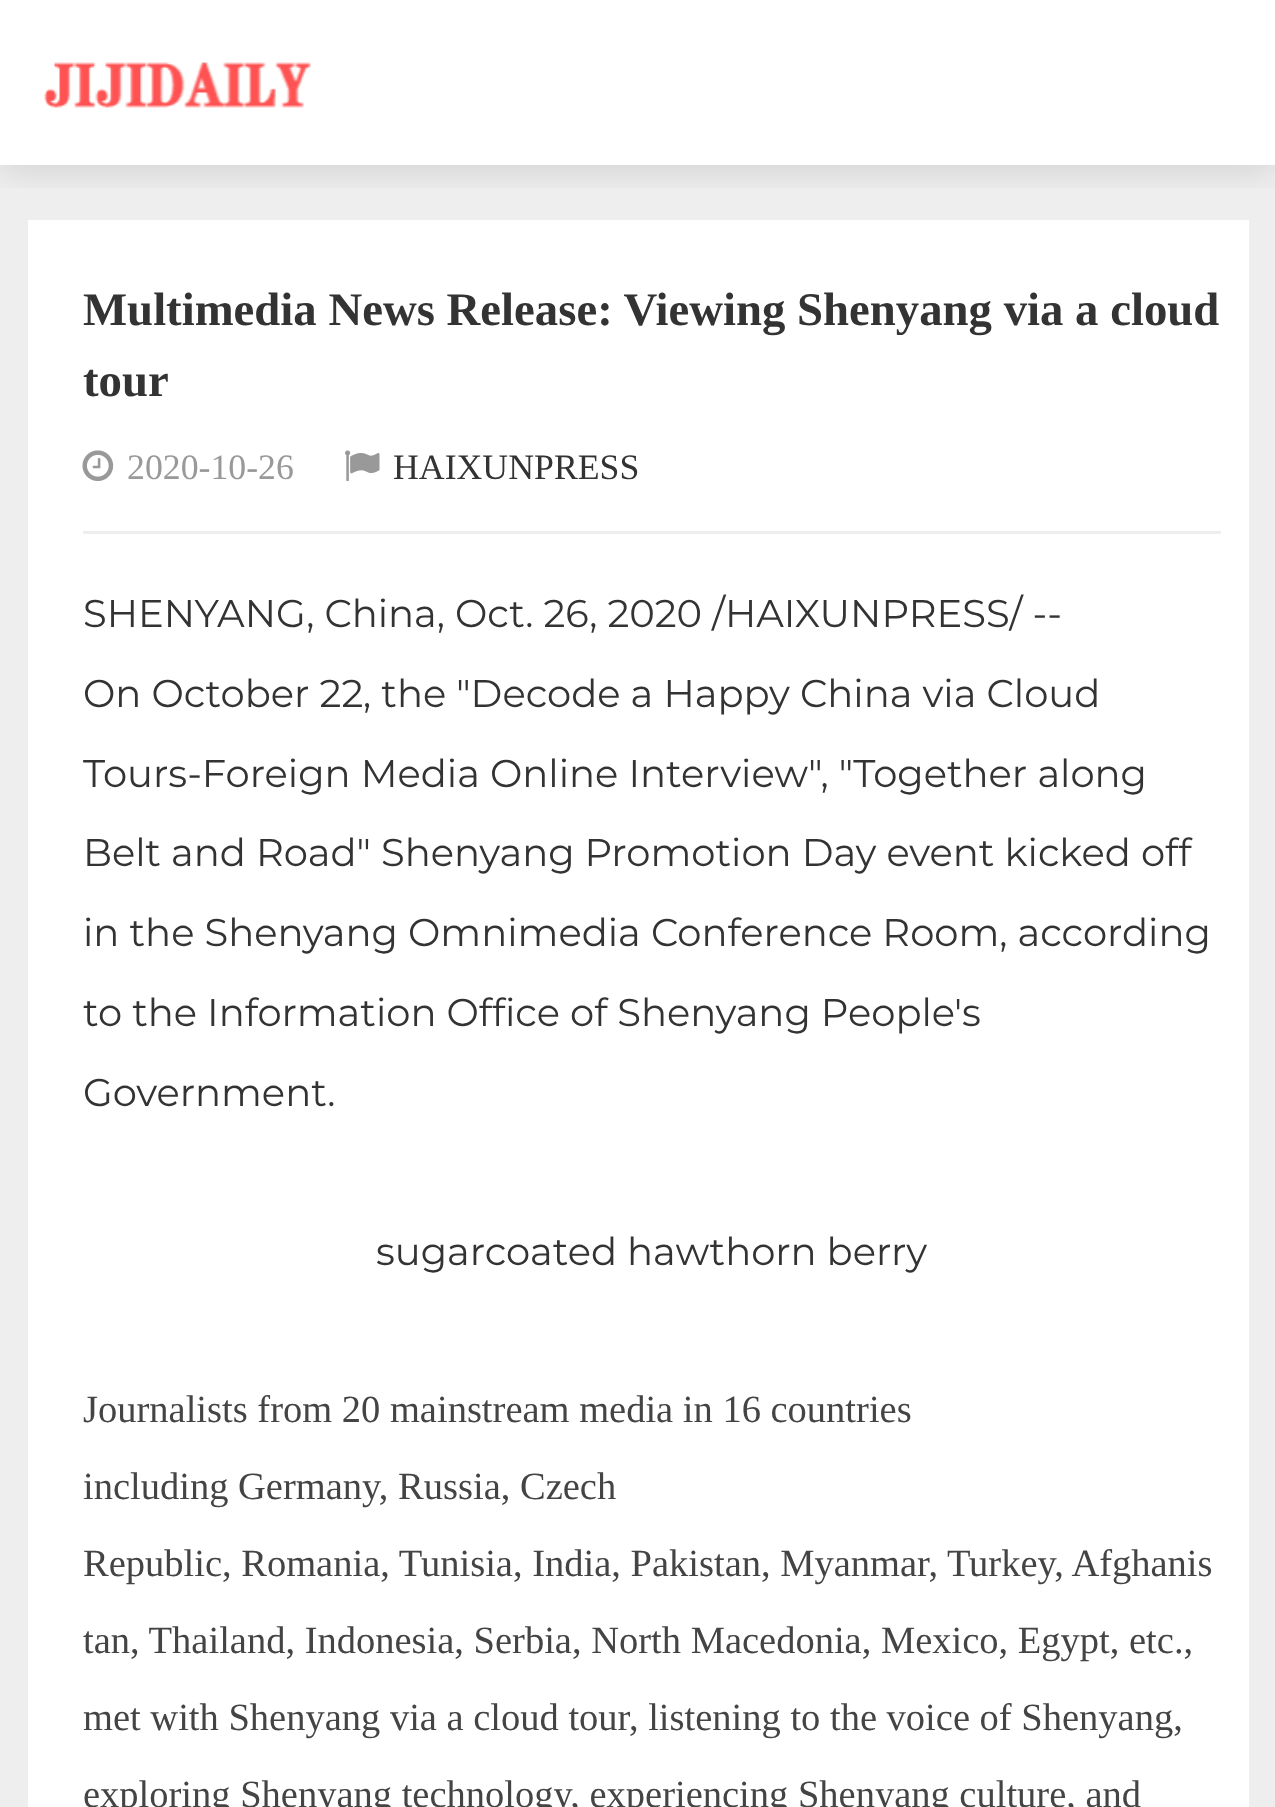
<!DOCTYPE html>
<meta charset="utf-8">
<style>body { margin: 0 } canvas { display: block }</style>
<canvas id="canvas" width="1275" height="1807"></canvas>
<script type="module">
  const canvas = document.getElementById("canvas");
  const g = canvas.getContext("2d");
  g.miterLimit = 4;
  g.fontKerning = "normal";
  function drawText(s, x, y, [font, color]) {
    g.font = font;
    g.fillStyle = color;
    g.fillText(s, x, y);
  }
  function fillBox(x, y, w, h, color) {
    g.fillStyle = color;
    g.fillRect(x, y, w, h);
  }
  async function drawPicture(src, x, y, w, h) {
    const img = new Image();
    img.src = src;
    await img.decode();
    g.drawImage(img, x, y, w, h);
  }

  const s1 = ["bold 46.75px Liberation Serif", "#333333"];
  const s2 = ["35.75px Liberation Serif", "#999999"];
  const s3 = ["35.75px Liberation Serif", "#333333"];
  const s4 = ["38.5px Montserrat", "#333333"];
  const s5 = ["38.5px Liberation Serif", "#444444"];

  fillBox(0, 0, 1275, 1807, "#FFFFFF");
  fillBox(0, 165, 1275, 1642, "#EEEEEE");
  fillBox(28, 220, 1221, 1587, "#FFFFFF");
  g.save();
  g.beginPath();
  g.rect(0, 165, 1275, 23);
  g.clip();
  g.fillStyle = "rgba(0, 0, 0, 0.15)";
  g.filter = "blur(20.5px)";
  g.beginPath();
  g.rect(0, 0, 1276, 165);
  g.fill();
  g.filter = "none";
  g.restore();
  await drawPicture("pic1.png", 44, 62, 267, 46);
  fillBox(83, 531, 1138, 3, "#EEEEEE");
  drawText("Multimedia News Release: Viewing Shenyang via a cloud", 83, 325, s1);
  drawText("tour", 83, 396, s1);
  await drawPicture("pic2.png", 82, 450, 32, 31);
  drawText("2020-10-26", 127, 479, s2);
  await drawPicture("pic3.png", 345, 450, 35, 32);
  drawText("HAIXUNPRESS", 393, 479, s3);
  drawText("SHENYANG, China, Oct. 26, 2020 /HAIXUNPRESS/ --", 83, 627, s4);
  drawText("On October 22", 83, 707, s4);
  drawText(", the \"Decode a Happy China via Cloud", 363, 707, s4);
  drawText("Tours-Foreign Media Online Interview\", \"Together along", 83, 787, s4);
  drawText("Belt and Road\" Shenyang Promotion Day event kicked off", 83, 866, s4);
  drawText("in the Shenyang Omnimedia Conference Room, according", 83, 946, s4);
  drawText("to the Information Office of Shenyang People's", 83, 1026, s4);
  drawText("Government.", 83, 1106, s4);
  drawText("sugarcoated hawthorn berry", 376, 1265, s4);
  drawText("Journalists from 20 mainstream media in 16 countries", 83, 1422, s5);
  drawText("including Germany, Russia, Czech", 83, 1499, s5);
  drawText("Republic, Romania, Tunisia, India, Pakistan, Myanmar, Turkey, Afghanis", 83, 1576, s5);
  drawText("tan, Thailand, Indonesia, Serbia, North Macedonia, Mexico, Egypt, etc.,", 83, 1653, s5);
  drawText("met with Shenyang via a cloud tour, listening to the voice of Shenyang,", 83, 1730, s5);
  drawText("exploring Shenyang technology, experiencing Shenyang culture, and", 83, 1807, s5);
</script>
